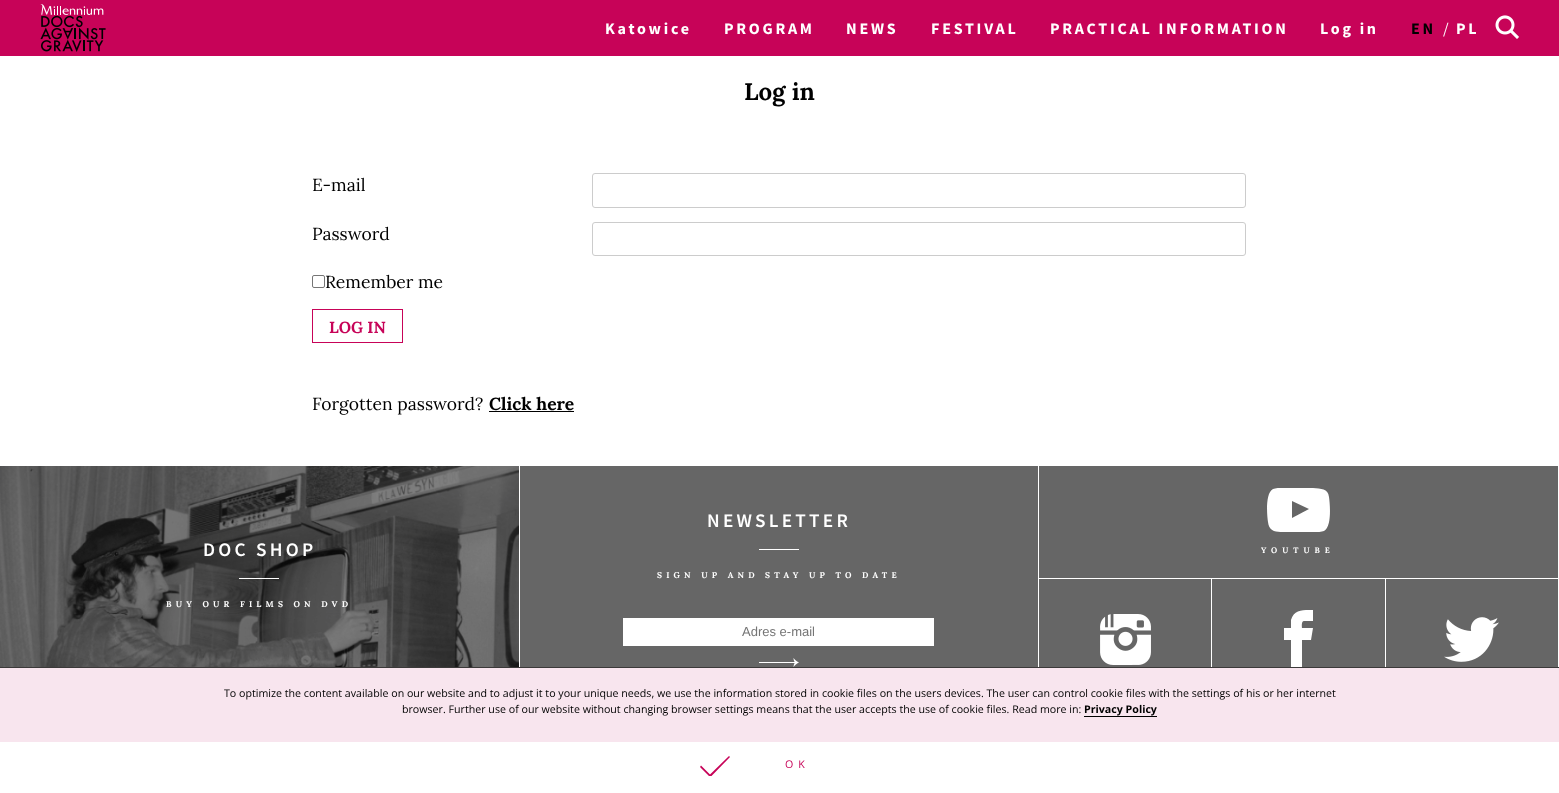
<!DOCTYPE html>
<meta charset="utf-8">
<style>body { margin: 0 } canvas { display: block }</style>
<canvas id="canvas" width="1559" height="793"></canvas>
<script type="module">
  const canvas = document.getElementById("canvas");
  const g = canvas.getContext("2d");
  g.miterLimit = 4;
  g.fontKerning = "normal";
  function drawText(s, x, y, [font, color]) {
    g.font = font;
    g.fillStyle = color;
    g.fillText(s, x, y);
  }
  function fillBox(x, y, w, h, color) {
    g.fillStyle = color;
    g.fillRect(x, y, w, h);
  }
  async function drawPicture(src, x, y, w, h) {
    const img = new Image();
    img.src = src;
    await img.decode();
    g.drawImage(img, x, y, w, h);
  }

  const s1 = ["bold 16px Source Sans Pro", "#FFFFFF"];
  const s2 = ["bold 16px Source Sans Pro", "#000000"];
  const s3 = ["16px Source Sans Pro", "#FFFFFF"];
  const s4 = ["bold 24px Lora", "#000000"];
  const s5 = ["17.5px Lora", "#000000"];
  const s6 = ["bold 16px Lora", "#C70358"];
  const s7 = ["bold 17.5px Lora", "#000000"];
  const s8 = ["600 19.25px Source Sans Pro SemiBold", "#FFFFFF"];
  const s9 = ["bold 8.4px Lora", "#FFFFFF"];
  const s10 = ["13px Liberation Sans", "#757575"];
  const s11 = ["bold 8px Lora", "#FFFFFF"];
  const s12 = ["10.67px Open Sans", "#000000"];
  const s13 = ["bold 10.67px Open Sans", "#000000"];
  const s14 = ["10.67px Open Sans", "#C70358"];

  fillBox(0, 0, 1559, 793, "#FFFFFF");
  fillBox(0, 0, 1559, 56, "#C70358");
  await drawPicture("pic1.png", 40, 4, 66, 48);
  g.letterSpacing = "2.75px";
  drawText("Katowice", 605, 34, s1);
  drawText("PROGRAM", 724, 34, s1);
  drawText("NEWS", 846, 34, s1);
  drawText("FESTIVAL", 931, 34, s1);
  drawText("PRACTICAL INFORMATION", 1050, 34, s1);
  drawText("Log in", 1320, 34, s1);
  drawText("EN", 1411, 34, s2);
  drawText("/", 1443, 34, s3);
  drawText("PL", 1456, 34, s1);
  await drawPicture("pic2.png", 1495, 15, 24, 24);
  g.letterSpacing = "0px";
  drawText("Log in", 744, 100, s4);
  drawText("E-mail", 312, 191, s5);
  g.beginPath();
  g.roundRect(592.5, 173.5, 653, 34, 2.5);
  g.strokeStyle = "#CCCCCC";
  g.stroke();
  drawText("Password", 312, 240, s5);
  g.beginPath();
  g.roundRect(592.5, 222.5, 653, 33, 2.5);
  g.stroke();
  g.beginPath();
  g.roundRect(312.5, 275.5, 12, 12, 1.5);
  g.strokeStyle = "#767676";
  g.stroke();
  drawText("Remember me", 325, 288, s5);
  g.strokeStyle = "#C70358";
  g.strokeRect(312.5, 309.5, 90, 33);
  drawText("LOG IN", 329, 333, s6);
  drawText("Forgotten password?", 312, 410, s5);
  drawText("Click here", 489, 410, s7);
  fillBox(489, 411, 85, 1, "#000000");
  await drawPicture("pic3.png", 0, 466, 519, 201);
  g.letterSpacing = "3.25px";
  drawText("DOC SHOP", 203, 556, s8);
  fillBox(239, 578, 40, 1, "#FFFFFF");
  g.letterSpacing = "4.2px";
  drawText("BUY OUR FILMS ON DVD", 166, 607, s9);
  fillBox(520, 466, 518, 201, "#666666");
  g.letterSpacing = "3.25px";
  drawText("NEWSLETTER", 707, 527, s8);
  fillBox(759, 549, 40, 1, "#FFFFFF");
  g.letterSpacing = "4.2px";
  drawText("SIGN UP AND STAY UP TO DATE", 657, 578, s9);
  fillBox(623, 618, 311, 28, "#FFFFFF");
  g.letterSpacing = "0px";
  drawText("Adres e-mail", 742, 636, s10);
  await drawPicture("pic4.png", 759, 658, 40, 9);
  fillBox(1039, 466, 519, 112, "#666666");
  g.save();
  g.beginPath();
  g.rect(1267, 488, 63, 44);
  g.clip();
  g.fillStyle = "#FFFFFF";
  g.beginPath();
  g.moveTo(1329, 497);
  g.bezierCurveTo(1328, 488, 1321, 489, 1313, 488);
  g.lineTo(1294, 488);
  g.bezierCurveTo(1289, 488, 1278, 487, 1273, 489);
  g.bezierCurveTo(1265, 493, 1267, 516, 1268, 522);
  g.bezierCurveTo(1269, 533, 1278, 532, 1286, 532);
  g.lineTo(1303, 532);
  g.bezierCurveTo(1308, 532, 1319, 533, 1324, 531);
  g.bezierCurveTo(1332, 527, 1330, 504, 1329, 497);
  g.closePath();
  g.moveTo(1292, 518);
  g.lineTo(1292, 501);
  g.lineTo(1309, 509);
  g.closePath();
  g.fill();
  g.restore();
  g.letterSpacing = "5px";
  drawText("YOUTUBE", 1261, 553, s11);
  fillBox(1039, 579, 172, 88, "#666666");
  await drawPicture("pic5.png", 1100, 614, 51, 51);
  fillBox(1212, 579, 173, 88, "#666666");
  g.fillStyle = "#FFFFFF";
  g.beginPath();
  g.moveTo(1304, 621);
  g.lineTo(1313, 621);
  g.lineTo(1313, 610);
  g.bezierCurveTo(1304, 610, 1294, 609, 1291, 620);
  g.lineTo(1291, 628);
  g.lineTo(1284, 628);
  g.lineTo(1284, 640);
  g.lineTo(1291, 640);
  g.lineTo(1291, 669);
  g.lineTo(1302, 669);
  g.lineTo(1302, 640);
  g.lineTo(1311, 640);
  g.lineTo(1313, 628);
  g.lineTo(1302, 628);
  g.bezierCurveTo(1302, 627, 1301, 621, 1304, 621);
  g.closePath();
  g.fill();
  fillBox(1386, 579, 172, 88, "#666666");
  await drawPicture("pic6.png", 1444, 617, 55, 45);
  fillBox(0, 668, 1559, 74, "#F8E5EE");
  fillBox(0, 667, 1559, 1, "#3B3939");
  g.letterSpacing = "0px";
  drawText("To optimize the content available on our website and to adjust it to your unique needs, we use the information stored in cookie files on the users devices. The user can control cookie files with the settings of his or her internet", 224, 697, s12);
  drawText("browser. Further use of our website without changing browser settings means that the user accepts the use of cookie files. Read more in:", 402, 713, s12);
  drawText("Privacy Policy", 1084, 713, s13);
  fillBox(1084, 716, 73, 1, "#000000");
  g.save();
  g.beginPath();
  g.rect(700, 756, 30, 20);
  g.clip();
  g.fillStyle = "#C70358";
  g.beginPath();
  g.moveTo(711, 776.5);
  g.lineTo(709.5, 776.5);
  g.lineTo(700, 767);
  g.lineTo(701, 765.5);
  g.lineTo(710, 774.5);
  g.lineTo(729, 756);
  g.lineTo(730, 757);
  g.closePath();
  g.fill();
  g.restore();
  g.letterSpacing = "5px";
  drawText("OK", 785, 768, s14);
</script>
